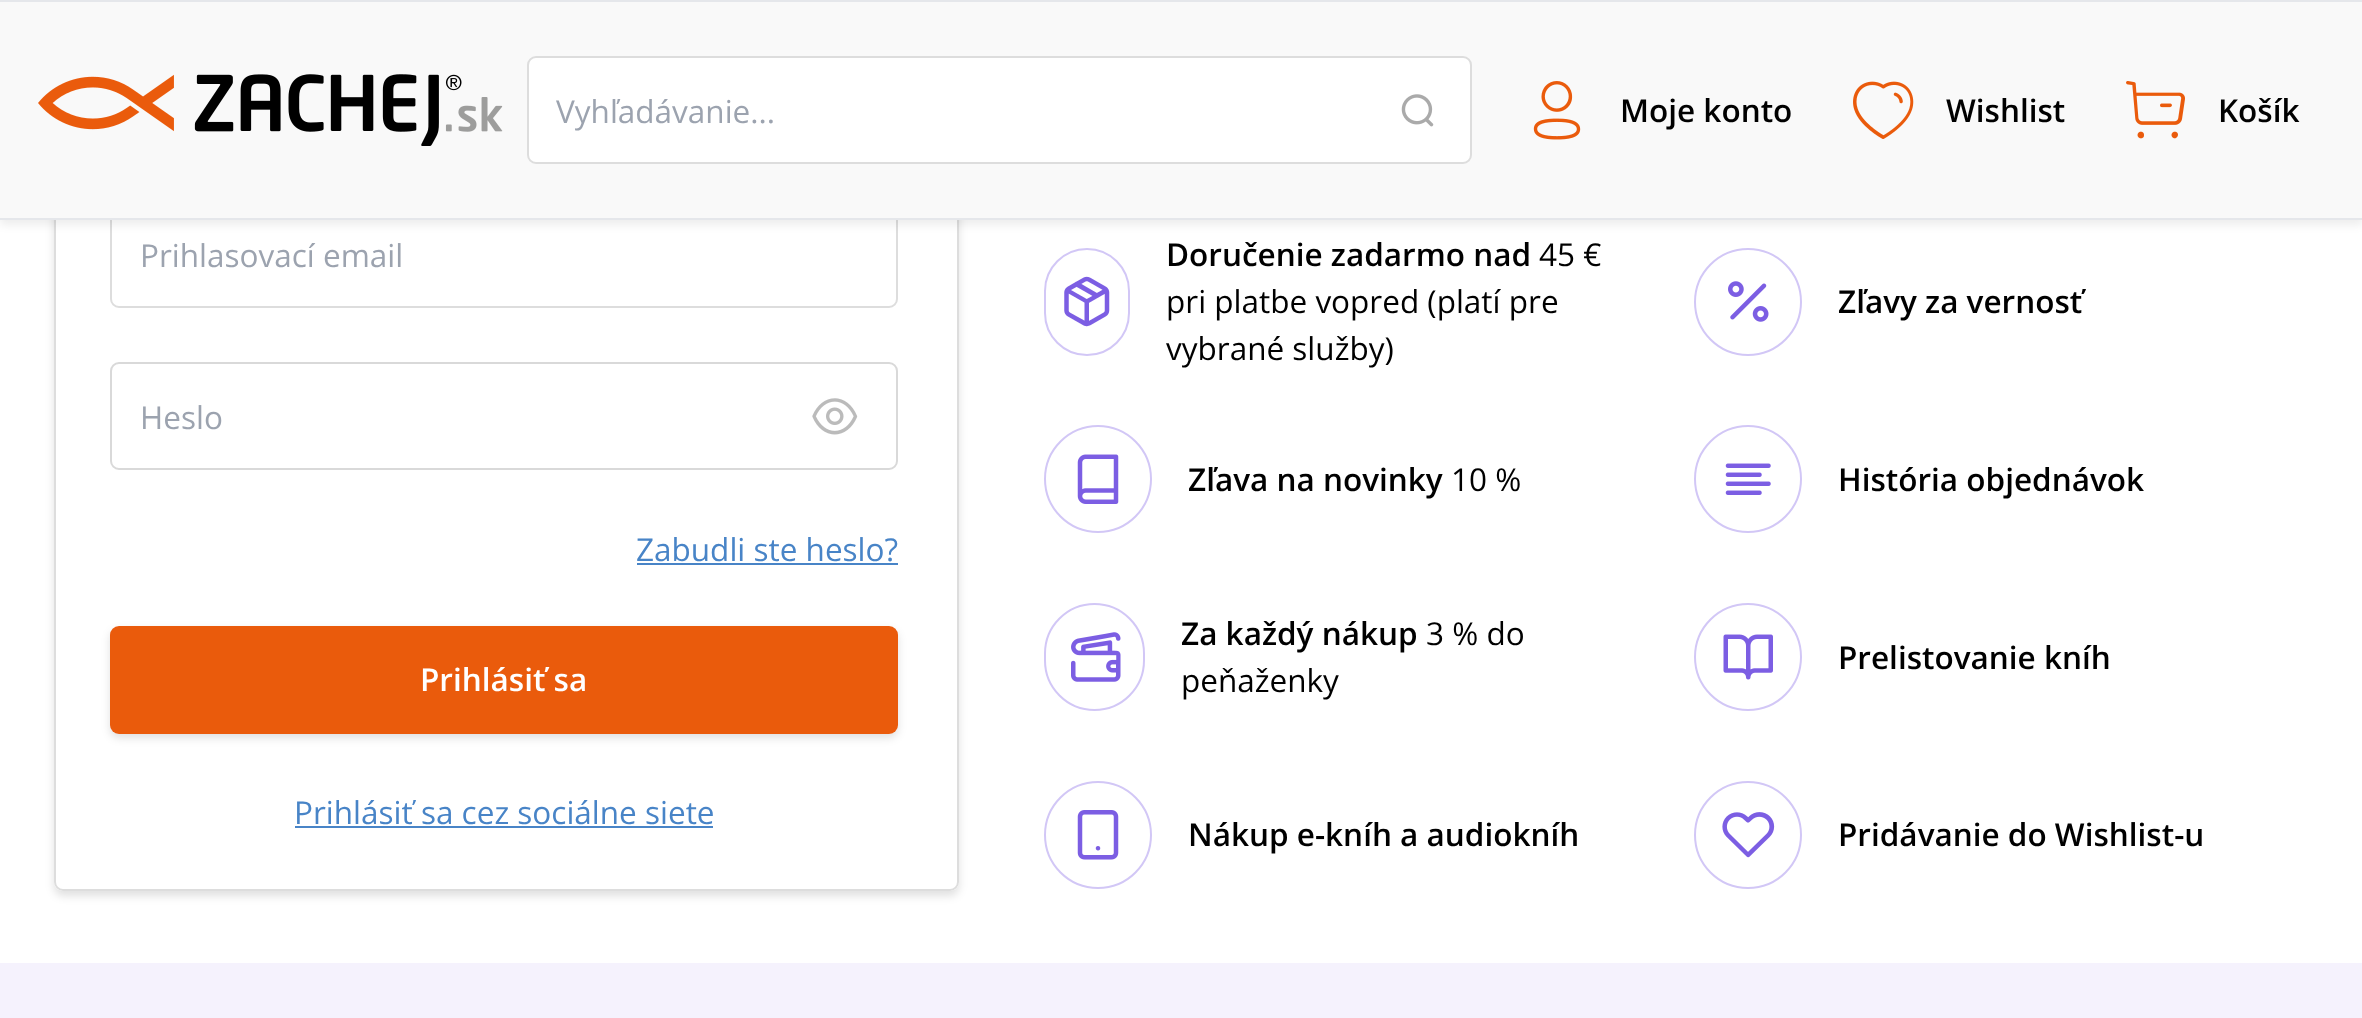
<!DOCTYPE html>
<meta charset="utf-8">
<style>body { margin: 0 } canvas { display: block }</style>
<canvas id="canvas" width="2362" height="1018"></canvas>
<script type="module">
  const canvas = document.getElementById("canvas");
  const g = canvas.getContext("2d");
  g.miterLimit = 4;
  g.fontKerning = "normal";
  function drawText(s, x, y, [font, color]) {
    g.font = font;
    g.fillStyle = color;
    g.fillText(s, x, y);
  }
  function fillBox(x, y, w, h, color) {
    g.fillStyle = color;
    g.fillRect(x, y, w, h);
  }
  function fillRounded(x, y, w, h, r, color) {
    g.fillStyle = color;
    g.beginPath();
    g.roundRect(x, y, w, h, r);
    g.fill();
  }
  async function drawPicture(src, x, y, w, h) {
    const img = new Image();
    img.src = src;
    await img.decode();
    g.drawImage(img, x, y, w, h);
  }

  const s1 = ["31.5px Open Sans", "#9CA3AF"];
  const s2 = ["600 31.5px Open Sans", "#000000"];
  const s3 = ["31.5px Open Sans", "#4884C7"];
  const s4 = ["600 31.5px Open Sans", "#FFFFFF"];
  const s5 = ["31.5px Open Sans", "#000000"];

  fillBox(0, 0, 2362, 1018, "#FFFFFF");
  g.save();
  g.beginPath();
  g.moveTo(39, 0);
  g.lineTo(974, 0);
  g.lineTo(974, 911);
  g.lineTo(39, 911);
  g.closePath();
  g.moveTo(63, -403);
  g.lineTo(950, -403);
  g.bezierCurveTo(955, -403, 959, -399, 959, -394);
  g.lineTo(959, 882);
  g.bezierCurveTo(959, 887, 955, 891, 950, 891);
  g.lineTo(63, 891);
  g.bezierCurveTo(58, 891, 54, 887, 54, 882);
  g.lineTo(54, -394);
  g.bezierCurveTo(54, -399, 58, -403, 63, -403);
  g.closePath();
  g.clip("evenodd");
  g.fillStyle = "rgba(0, 0, 0, 0.12)";
  g.filter = "blur(4.5px)";
  g.beginPath();
  g.roundRect(54, -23, 905, 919, 9);
  g.fill();
  g.filter = "none";
  g.restore();
  g.beginPath();
  g.roundRect(55, -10, 903, 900, 8);
  g.strokeStyle = "#DDDDDD";
  g.lineWidth = 2;
  g.stroke();
  g.beginPath();
  g.roundRect(111, 201, 786, 106, 8);
  g.stroke();
  g.fillStyle = "rgba(0, 0, 0, 0.07)";
  g.filter = "blur(4.5px)";
  g.beginPath();
  g.rect(0, 5, 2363, 220);
  g.fill();
  g.filter = "none";
  fillBox(0, 2, 2362, 216, "#F9F9F9");
  fillBox(0, 0, 2362, 2, "#E5E7EB");
  fillBox(0, 218, 2362, 2, "#E5E7EB");
  await drawPicture("pic1.png", 38, 74, 465, 72);
  g.fillStyle = "#FFFFFF";
  g.beginPath();
  g.roundRect(528, 57, 943, 106, 8);
  g.fill();
  g.stroke();
  drawText("Vyhľadávanie...", 556, 123, s1);
  await drawPicture("pic2.png", 1401, 94, 33, 33);
  await drawPicture("pic3.png", 1533, 81, 48, 59);
  drawText("Moje konto", 1620, 122, s2);
  await drawPicture("pic4.png", 1853, 81, 61, 58);
  drawText("Wishlist", 1946, 122, s2);
  await drawPicture("pic5.png", 2126, 81, 59, 58);
  drawText("Košík", 2218, 122, s2);
  drawText("Prihlasovací email", 140, 267, s1);
  g.beginPath();
  g.roundRect(111, 363, 786, 106, 8);
  g.strokeStyle = "#D9D9D9";
  g.stroke();
  drawText("Heslo", 140, 429, s1);
  await drawPicture("pic6.png", 812, 398, 46, 37);
  drawText("Zabudli ste heslo?", 636, 561, s3);
  fillBox(637, 563, 261, 2, "#4884C7");
  g.fillStyle = "rgba(0, 0, 0, 0.12)";
  g.filter = "blur(4.5px)";
  g.beginPath();
  g.roundRect(110, 630, 788, 108, 9);
  g.fill();
  g.filter = "none";
  fillRounded(110, 626, 788, 108, 9, "#EA5B0C");
  drawText("Prihlásiť sa", 420, 691, s4);
  drawText("Prihlásiť sa cez sociálne siete", 294, 824, s3);
  fillBox(295, 826, 418, 2, "#4884C7");
  g.beginPath();
  g.roundRect(1045, 249, 84, 106, 42);
  g.strokeStyle = "#D2C7F6";
  g.stroke();
  await drawPicture("pic7.png", 1064, 276, 46, 51);
  drawText("Doručenie zadarmo nad", 1166, 266, s2);
  drawText("45 €", 1539, 266, s5);
  drawText("pri platbe vopred (platí pre", 1166, 313, s5);
  drawText("vybrané služby)", 1166, 360, s5);
  g.beginPath();
  g.arc(1748, 302, 53, 0, Math.PI * 2);
  g.stroke();
  await drawPicture("pic8.png", 1728, 281, 41, 41);
  drawText("Zľavy za vernosť", 1838, 313, s2);
  g.beginPath();
  g.arc(1098, 479, 53, 0, Math.PI * 2);
  g.stroke();
  await drawPicture("pic9.png", 1077, 454, 42, 50);
  drawText("Zľava na novinky", 1188, 491, s2);
  drawText("10 %", 1451, 491, s5);
  g.beginPath();
  g.arc(1748, 479, 53, 0, Math.PI * 2);
  g.stroke();
  await drawPicture("pic10.png", 1725, 463, 46, 32);
  drawText("História objednávok", 1838, 491, s2);
  g.beginPath();
  g.roundRect(1045, 604, 99, 106, 49.5);
  g.stroke();
  await drawPicture("pic11.png", 1071, 632, 50, 50);
  drawText("Za každý nákup", 1181, 645, s2);
  drawText("3 % do", 1426, 645, s5);
  drawText("peňaženky", 1181, 692, s5);
  g.beginPath();
  g.arc(1748, 657, 53, 0, Math.PI * 2);
  g.stroke();
  await drawPicture("pic12.png", 1723, 634, 50, 46);
  drawText("Prelistovanie kníh", 1838, 669, s2);
  g.beginPath();
  g.arc(1098, 835, 53, 0, Math.PI * 2);
  g.stroke();
  await drawPicture("pic13.png", 1077, 810, 42, 50);
  drawText("Nákup e-kníh a audiokníh", 1188, 846, s2);
  g.beginPath();
  g.arc(1748, 835, 53, 0, Math.PI * 2);
  g.stroke();
  await drawPicture("pic14.png", 1722, 812, 53, 46);
  drawText("Pridávanie do Wishlist-u", 1838, 846, s2);
  fillBox(0, 963, 2362, 55, "#F5F2FD");
</script>
